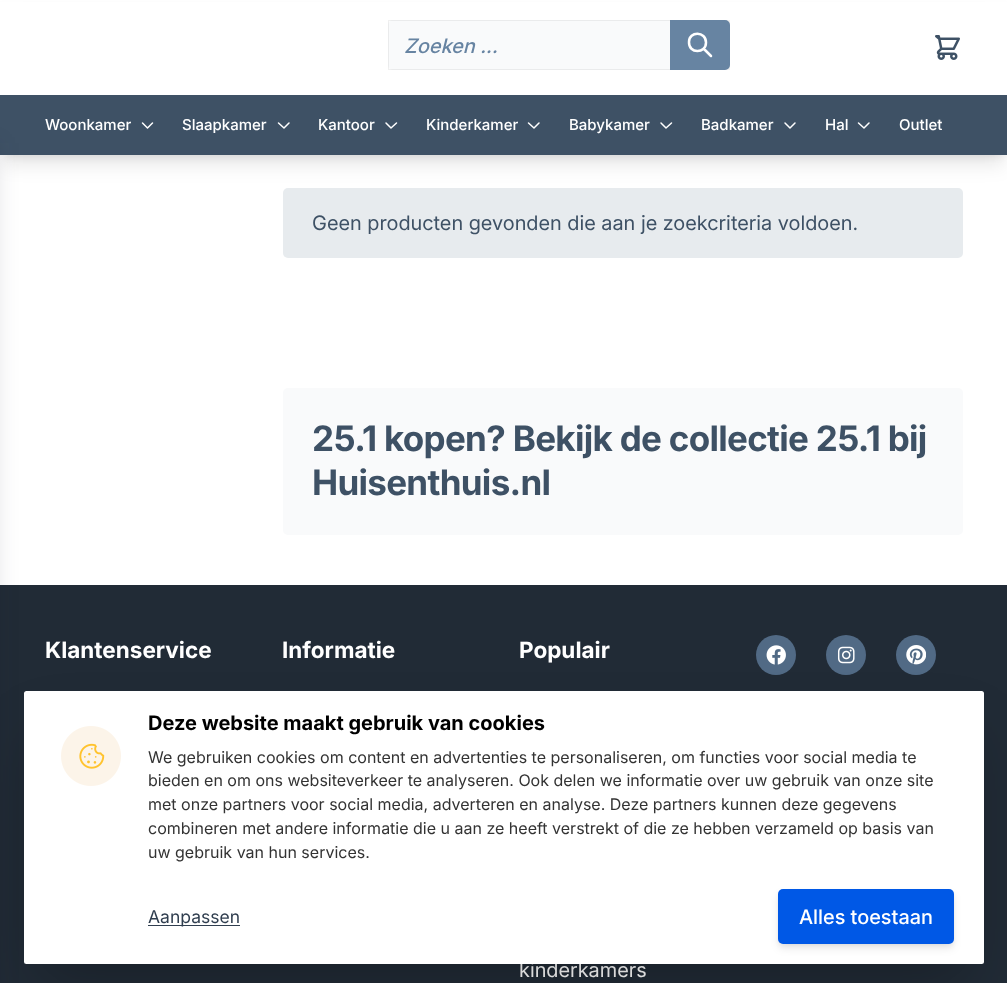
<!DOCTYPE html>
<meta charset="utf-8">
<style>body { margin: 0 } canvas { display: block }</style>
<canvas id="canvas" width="1007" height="983"></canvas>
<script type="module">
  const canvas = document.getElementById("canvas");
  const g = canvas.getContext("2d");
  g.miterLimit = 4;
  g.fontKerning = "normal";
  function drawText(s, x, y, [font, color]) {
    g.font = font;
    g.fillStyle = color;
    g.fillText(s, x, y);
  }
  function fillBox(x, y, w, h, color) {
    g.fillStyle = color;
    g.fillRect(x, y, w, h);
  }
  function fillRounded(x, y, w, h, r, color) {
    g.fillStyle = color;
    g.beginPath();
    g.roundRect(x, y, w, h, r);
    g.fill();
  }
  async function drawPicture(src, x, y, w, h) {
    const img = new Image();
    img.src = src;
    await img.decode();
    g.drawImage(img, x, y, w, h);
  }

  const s1 = ["italic 500 20px Inter", "#6784A2"];
  const s2 = ["500 15px Inter", "#FFFFFF"];
  const s3 = ["20px Inter", "#3E5165"];
  const s4 = ["bold 35px Inter", "#3E5165"];
  const s5 = ["bold 22.5px Inter", "#FFFFFF"];
  const s6 = ["20px Inter", "#FFFFFF"];
  const s7 = ["bold 20px Inter", "#000000"];
  const s8 = ["16px 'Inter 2'", "#333333"];
  const s9 = ["17.5px 'Inter 2'", "#303E4F"];
  const s10 = ["500 20px 'Inter 2'", "#FFFFFF"];

  fillBox(0, 0, 1007, 983, "#FFFFFF");
  g.fillStyle = "rgba(0, 0, 0, 0.1)";
  g.filter = "blur(4px)";
  g.beginPath();
  g.rect(5, 10, 998, 145);
  g.fill();
  g.filter = "none";
  fillRounded(283, 188, 680, 70, 5, "#E7EBEE");
  g.fillStyle = "rgba(0, 0, 0, 0.1)";
  g.filter = "blur(9.5px)";
  g.beginPath();
  g.rect(4, 16, 1000, 148);
  g.fill();
  g.filter = "none";
  fillBox(0, 2, 1007, 93, "#FFFFFF");
  fillRounded(388, 20, 342, 50, 5, "#F9FAFB");
  g.strokeStyle = "rgba(0, 0, 0, 0.06)";
  g.strokeRect(388.5, 20.5, 341, 49);
  drawText("Zoeken ...", 404, 53, s1);
  g.beginPath();
  g.roundRect(670, 20, 60, 50, [0, 5, 5, 0]);
  g.fill();
  g.beginPath();
  g.moveTo(711, 56);
  g.lineTo(704, 49);
  g.closePath();
  g.moveTo(706, 42.5);
  g.bezierCurveTo(706, 54, 688.5, 54, 689, 42);
  g.bezierCurveTo(689, 31, 706, 31, 706, 42.5);
  g.closePath();
  g.strokeStyle = "#FFFFFF";
  g.lineWidth = 2.5;
  g.lineCap = "round";
  g.lineJoin = "round";
  g.stroke();
  await drawPicture("pic1.png", 935, 35, 25, 25);
  fillBox(0, 95, 1007, 60, "#3E5165");
  drawText("Woonkamer", 45, 130, s2);
  g.beginPath();
  g.moveTo(152.5, 123);
  g.lineTo(147.5, 128);
  g.lineTo(142.5, 123);
  g.lineWidth = 1.5;
  g.stroke();
  drawText("Slaapkamer", 182, 130, s2);
  g.beginPath();
  g.moveTo(289, 123);
  g.lineTo(284, 128);
  g.lineTo(278.5, 123);
  g.stroke();
  drawText("Kantoor", 318, 130, s2);
  g.beginPath();
  g.moveTo(396.5, 123);
  g.lineTo(391, 128);
  g.lineTo(386, 123);
  g.stroke();
  drawText("Kinderkamer", 426, 130, s2);
  g.beginPath();
  g.moveTo(539, 123);
  g.lineTo(534, 128);
  g.lineTo(528.5, 123);
  g.stroke();
  drawText("Babykamer", 569, 130, s2);
  g.beginPath();
  g.moveTo(671.5, 123);
  g.lineTo(666, 128);
  g.lineTo(661, 123);
  g.stroke();
  drawText("Badkamer", 701, 130, s2);
  g.beginPath();
  g.moveTo(795, 123);
  g.lineTo(790, 128);
  g.lineTo(785, 123);
  g.stroke();
  drawText("Hal", 825, 130, s2);
  g.beginPath();
  g.moveTo(869, 123);
  g.lineTo(864, 128);
  g.lineTo(858.5, 123);
  g.stroke();
  drawText("Outlet", 899, 130, s2);
  fillBox(0, 585, 1007, 398, "#212B36");
  g.fillStyle = "rgba(27, 32, 45, 0.1)";
  g.filter = "blur(9.5px)";
  g.beginPath();
  g.rect(-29, 143, 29, 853);
  g.fill();
  g.filter = "none";
  drawText("Geen producten gevonden die aan je zoekcriteria voldoen.", 312, 230, s3);
  fillRounded(283, 388, 680, 147, 5, "#F9FAFB");
  g.letterSpacing = "-0.7px";
  drawText("25.1 kopen? Bekijk de collectie 25.1 bij", 312, 451, s4);
  drawText("Huisenthuis.nl", 312, 495, s4);
  g.letterSpacing = "0px";
  drawText("Klantenservice", 45, 658, s5);
  drawText("Informatie", 282, 658, s5);
  drawText("Populair", 519, 658, s5);
  drawText("kinderkamers", 519, 977, s6);
  g.fillStyle = "#516A85";
  g.beginPath();
  g.arc(776, 655, 20, 0, Math.PI * 2);
  g.fill();
  await drawPicture("pic2.png", 766, 645, 20, 20);
  g.beginPath();
  g.arc(846, 655, 20, 0, Math.PI * 2);
  g.fill();
  await drawPicture("pic3.png", 837, 646, 18, 18);
  g.beginPath();
  g.arc(916, 655, 20, 0, Math.PI * 2);
  g.fill();
  await drawPicture("pic4.png", 906, 645, 20, 20);
  g.fillStyle = "rgba(0, 0, 0, 0.25)";
  g.filter = "blur(31px)";
  g.beginPath();
  g.rect(39, 738, 930, 242);
  g.fill();
  g.filter = "none";
  fillRounded(24, 691, 960, 273, 2.5, "#FFFFFF");
  await drawPicture("pic5.png", 61, 726, 60, 60);
  drawText("Deze website maakt gebruik van cookies", 148, 730, s7);
  drawText("We gebruiken cookies om content en advertenties te personaliseren, om functies voor social media te", 148, 763, s8);
  drawText("bieden en om ons websiteverkeer te analyseren. Ook delen we informatie over uw gebruik van onze site", 148, 786, s8);
  drawText("met onze partners voor social media, adverteren en analyse. Deze partners kunnen deze gegevens", 148, 810, s8);
  drawText("combineren met andere informatie die u aan ze heeft verstrekt of die ze hebben verzameld op basis van", 148, 834, s8);
  drawText("uw gebruik van hun services.", 148, 858, s8);
  fillBox(148, 925, 92, 1, "#303E4F");
  drawText("Aanpassen", 148, 923, s9);
  g.fillStyle = "rgba(0, 0, 0, 0.06)";
  g.filter = "blur(2.5px)";
  g.beginPath();
  g.roundRect(779, 893, 174, 52, 4);
  g.fill();
  g.filter = "none";
  g.fillStyle = "rgba(0, 0, 0, 0.1)";
  g.filter = "blur(4px)";
  g.beginPath();
  g.roundRect(779, 895, 174, 53, 4);
  g.fill();
  g.filter = "none";
  fillRounded(778, 889, 176, 55, 5, "#0058E6");
  drawText("Alles toestaan", 799, 924, s10);
</script>
